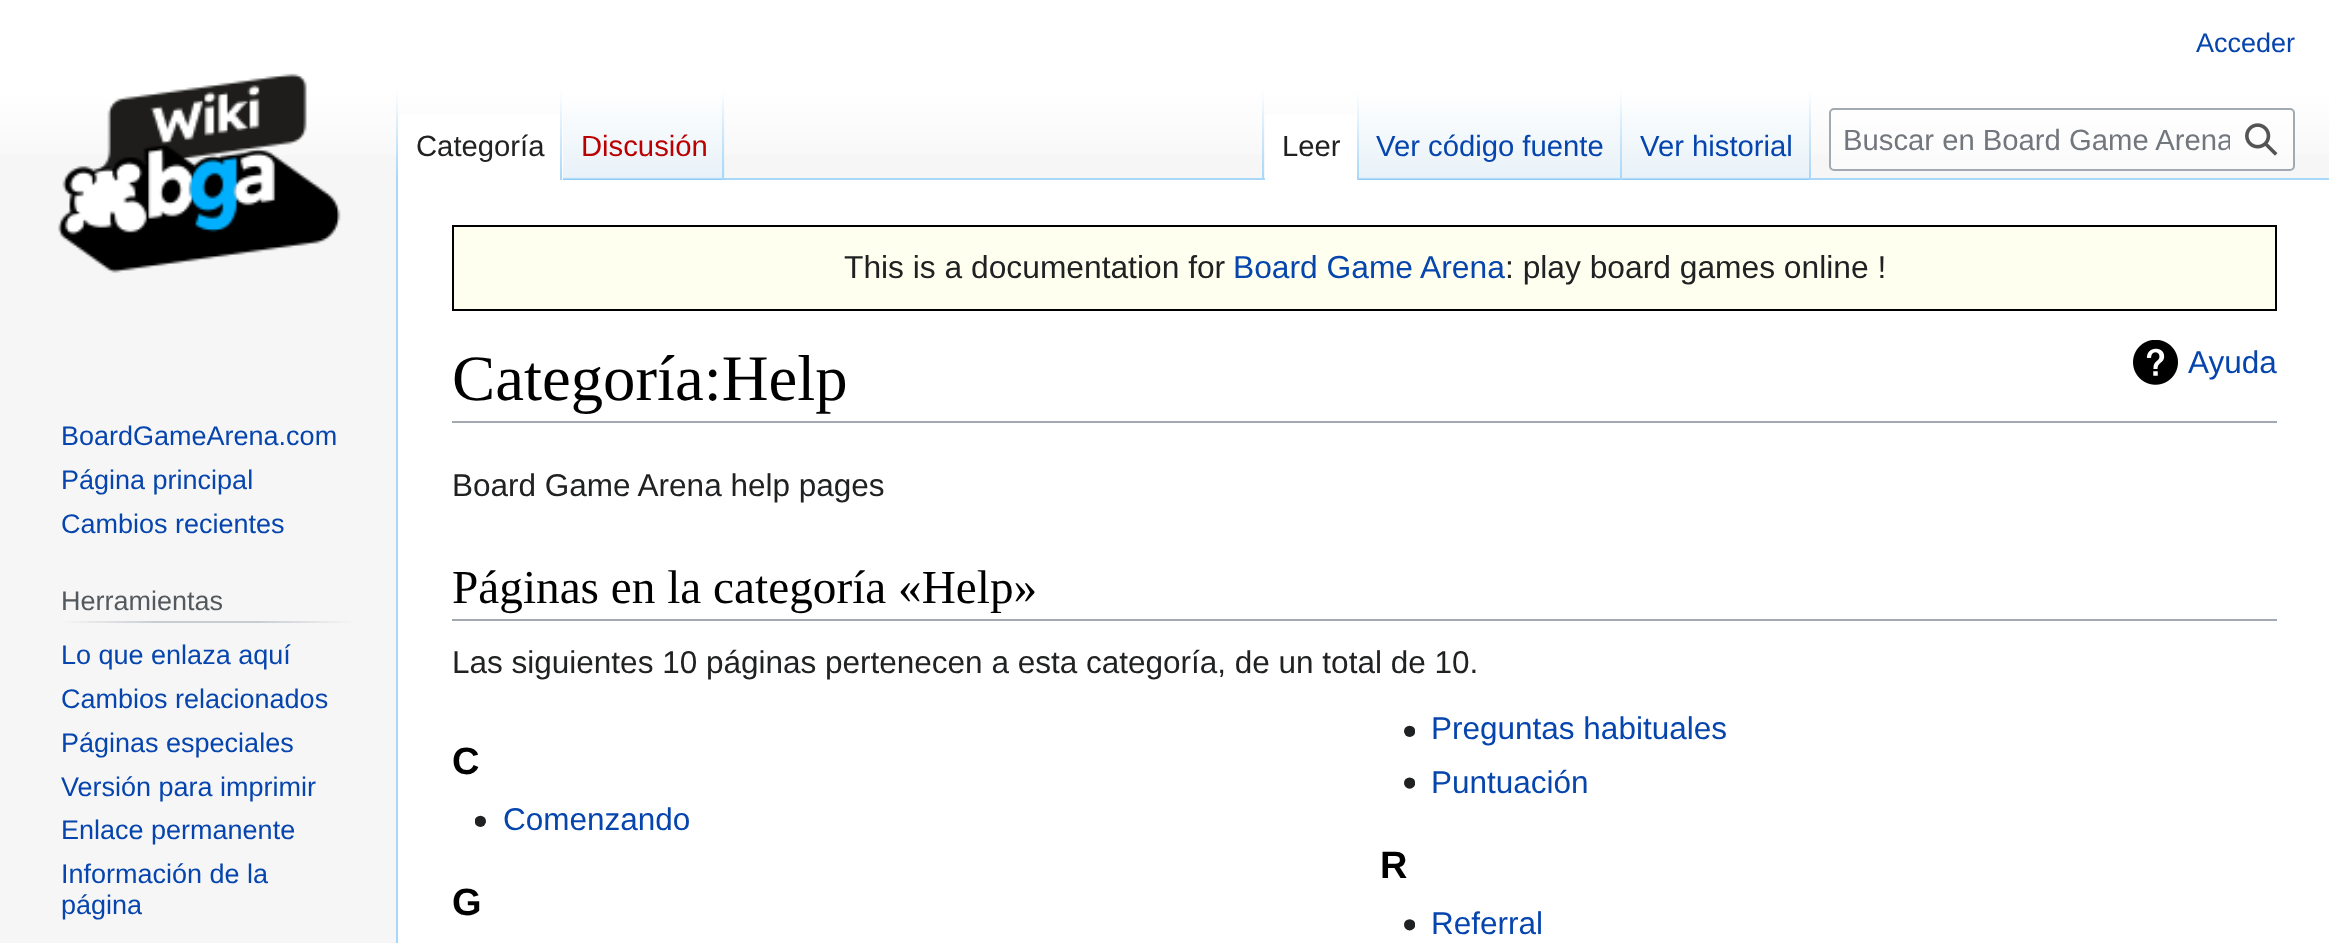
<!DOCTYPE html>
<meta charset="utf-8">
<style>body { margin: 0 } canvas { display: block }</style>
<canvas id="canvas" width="2329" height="943"></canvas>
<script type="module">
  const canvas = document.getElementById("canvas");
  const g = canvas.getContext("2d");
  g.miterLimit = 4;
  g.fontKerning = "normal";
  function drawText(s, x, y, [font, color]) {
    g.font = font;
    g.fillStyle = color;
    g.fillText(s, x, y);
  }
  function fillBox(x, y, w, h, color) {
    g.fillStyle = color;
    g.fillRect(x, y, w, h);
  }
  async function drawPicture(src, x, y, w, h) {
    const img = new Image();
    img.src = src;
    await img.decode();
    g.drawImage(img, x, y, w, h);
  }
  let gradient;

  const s1 = ["27px Liberation Sans", "#0645AD"];
  const s2 = ["29.25px Liberation Sans", "#202122"];
  const s3 = ["29.25px Liberation Sans", "#BA0000"];
  const s4 = ["29.25px Liberation Sans", "#0645AD"];
  const s5 = ["29.25px Liberation Sans", "#72777D"];
  const s6 = ["27px Liberation Sans", "#54595D"];
  const s7 = ["31.75px Liberation Sans", "#202122"];
  const s8 = ["31.75px Liberation Sans", "#0645AD"];
  const s9 = ["64.75px Liberation Serif", "#000000"];
  const s10 = ["31.5px Liberation Sans", "#0645AD"];
  const s11 = ["31.5px Liberation Sans", "#202122"];
  const s12 = ["47.25px Liberation Serif", "#000000"];
  const s13 = ["bold 38px Liberation Sans", "#000000"];

  fillBox(0, 0, 2329, 943, "#F6F6F6");
  gradient = g.createLinearGradient(1166, 0, 1166, 180);
  gradient.addColorStop(0.5, "#FFFFFF");
  gradient.addColorStop(1, "#F6F6F6");
  g.fillStyle = gradient;
  g.fillRect(0, 0, 2329, 155);
  drawText("Acceder", 2196, 52, s1);
  fillBox(396, 178, 2, 765, "#A7D7F9");
  gradient = g.createLinearGradient(397, 90, 397, 180);
  gradient.addColorStop(0, "rgba(167, 215, 249, 0)");
  gradient.addColorStop(1, "#A7D7F9");
  g.fillStyle = gradient;
  g.fillRect(396, 90, 2, 90);
  fillBox(398, 115, 165, 65, "#FFFFFF");
  gradient = g.createLinearGradient(561, 90, 561, 180);
  gradient.addColorStop(0, "#FFFFFF");
  gradient.addColorStop(1, "#A7D7F9");
  g.fillStyle = gradient;
  g.fillRect(560, 90, 2, 90);
  drawText("Categoría", 416, 156, s2);
  gradient = g.createLinearGradient(644, 180, 644, 90);
  gradient.addColorStop(0, "#77C1F6");
  gradient.addColorStop(0.03, "#E8F2F8");
  gradient.addColorStop(1, "#FFFFFF");
  g.fillStyle = gradient;
  g.fillRect(563, 103, 162, 77);
  gradient = g.createLinearGradient(723, 90, 723, 180);
  gradient.addColorStop(0, "rgba(167, 215, 249, 0)");
  gradient.addColorStop(1, "#A7D7F9");
  g.fillStyle = gradient;
  g.fillRect(722, 90, 2, 90);
  drawText("Discusión", 581, 156, s3);
  fillBox(725, 178, 1604, 2, "#A7D7F9");
  gradient = g.createLinearGradient(1263, 90, 1263, 180);
  gradient.addColorStop(0, "rgba(167, 215, 249, 0)");
  gradient.addColorStop(1, "#A7D7F9");
  g.fillStyle = gradient;
  g.fillRect(1262, 90, 2, 90);
  fillBox(1265, 115, 92, 65, "#FFFFFF");
  gradient = g.createLinearGradient(1358, 90, 1358, 180);
  gradient.addColorStop(0, "#FFFFFF");
  gradient.addColorStop(1, "#A7D7F9");
  g.fillStyle = gradient;
  g.fillRect(1357, 90, 2, 90);
  drawText("Leer", 1282, 156, s2);
  gradient = g.createLinearGradient(1491, 180, 1491, 90);
  gradient.addColorStop(0, "#77C1F6");
  gradient.addColorStop(0.03, "#E8F2F8");
  gradient.addColorStop(1, "#FFFFFF");
  g.fillStyle = gradient;
  g.fillRect(1359, 103, 263, 77);
  gradient = g.createLinearGradient(1621, 90, 1621, 180);
  gradient.addColorStop(0, "rgba(167, 215, 249, 0)");
  gradient.addColorStop(1, "#A7D7F9");
  g.fillStyle = gradient;
  g.fillRect(1620, 90, 2, 90);
  drawText("Ver código fuente", 1376, 156, s4);
  gradient = g.createLinearGradient(1717, 180, 1717, 90);
  gradient.addColorStop(0, "#77C1F6");
  gradient.addColorStop(0.03, "#E8F2F8");
  gradient.addColorStop(1, "#FFFFFF");
  g.fillStyle = gradient;
  g.fillRect(1622, 103, 189, 77);
  gradient = g.createLinearGradient(1810, 90, 1810, 180);
  gradient.addColorStop(0, "rgba(167, 215, 249, 0)");
  gradient.addColorStop(1, "#A7D7F9");
  g.fillStyle = gradient;
  g.fillRect(1809, 90, 2, 90);
  drawText("Ver historial", 1640, 156, s4);
  g.fillStyle = "rgba(255, 255, 255, 0.5)";
  g.beginPath();
  g.roundRect(1830, 109, 464, 61, 4);
  g.fill();
  g.strokeStyle = "#A2A9B1";
  g.lineWidth = 2;
  g.stroke();
  g.save();
  g.beginPath();
  g.rect(1843, 124, 387, 34);
  g.clip();
  drawText("Buscar en Board Game Arena", 1843, 150, s5);
  g.restore();
  await drawPicture("pic1.png", 2245, 123, 33, 33);
  await drawPicture("pic2.png", 58, 73, 283, 200);
  drawText("BoardGameArena.com", 61, 445, s1);
  drawText("Página principal", 61, 489, s1);
  drawText("Cambios recientes", 61, 533, s1);
  gradient = g.createLinearGradient(61, 622, 356, 622);
  gradient.addColorStop(0, "#F6F6F6");
  gradient.addColorStop(0.33, "#C8CCD1");
  gradient.addColorStop(0.66, "#C8CCD1");
  gradient.addColorStop(1, "#F6F6F6");
  g.fillStyle = gradient;
  g.fillRect(61, 621, 295, 2);
  drawText("Herramientas", 61, 610, s6);
  drawText("Lo que enlaza aquí", 61, 664, s1);
  drawText("Cambios relacionados", 61, 708, s1);
  drawText("Páginas especiales", 61, 752, s1);
  drawText("Versión para imprimir", 61, 796, s1);
  drawText("Enlace permanente", 61, 839, s1);
  drawText("Información de la", 61, 883, s1);
  drawText("página", 61, 914, s1);
  fillBox(398, 180, 1931, 763, "#FFFFFF");
  g.fillStyle = "#FFFFF0";
  g.beginPath();
  g.rect(453, 226, 1823, 84);
  g.fill();
  g.strokeStyle = "#000000";
  g.stroke();
  drawText("This is a documentation for", 844, 278, s7);
  drawText("Board Game Arena", 1233, 278, s8);
  drawText(": play board games online !", 1505, 278, s7);
  fillBox(452, 421, 1825, 2, "#A2A9B1");
  drawText("Categoría:Help", 452, 400, s9);
  await drawPicture("pic3.png", 2133, 340, 45, 45);
  drawText("Ayuda", 2188, 373, s10);
  drawText("Board Game Arena help pages", 452, 496, s11);
  fillBox(452, 619, 1825, 2, "#A2A9B1");
  drawText("Páginas en la categoría «Help»", 452, 603, s12);
  drawText("Las siguientes 10 páginas pertenecen a esta categoría, de un total de 10.", 452, 673, s11);
  drawText("C", 452, 774, s13);
  await drawPicture("pic4.png", 475, 815, 11, 12);
  drawText("Comenzando", 503, 830, s10);
  await drawPicture("pic5.png", 1404, 725, 11, 12);
  drawText("Preguntas habituales", 1431, 739, s10);
  await drawPicture("pic6.png", 1404, 777, 11, 12);
  drawText("Puntuación", 1431, 793, s10);
  drawText("G", 452, 915, s13);
  drawText("R", 1380, 878, s13);
  await drawPicture("pic7.png", 1404, 919, 11, 12);
  drawText("Referral", 1431, 934, s10);
</script>
